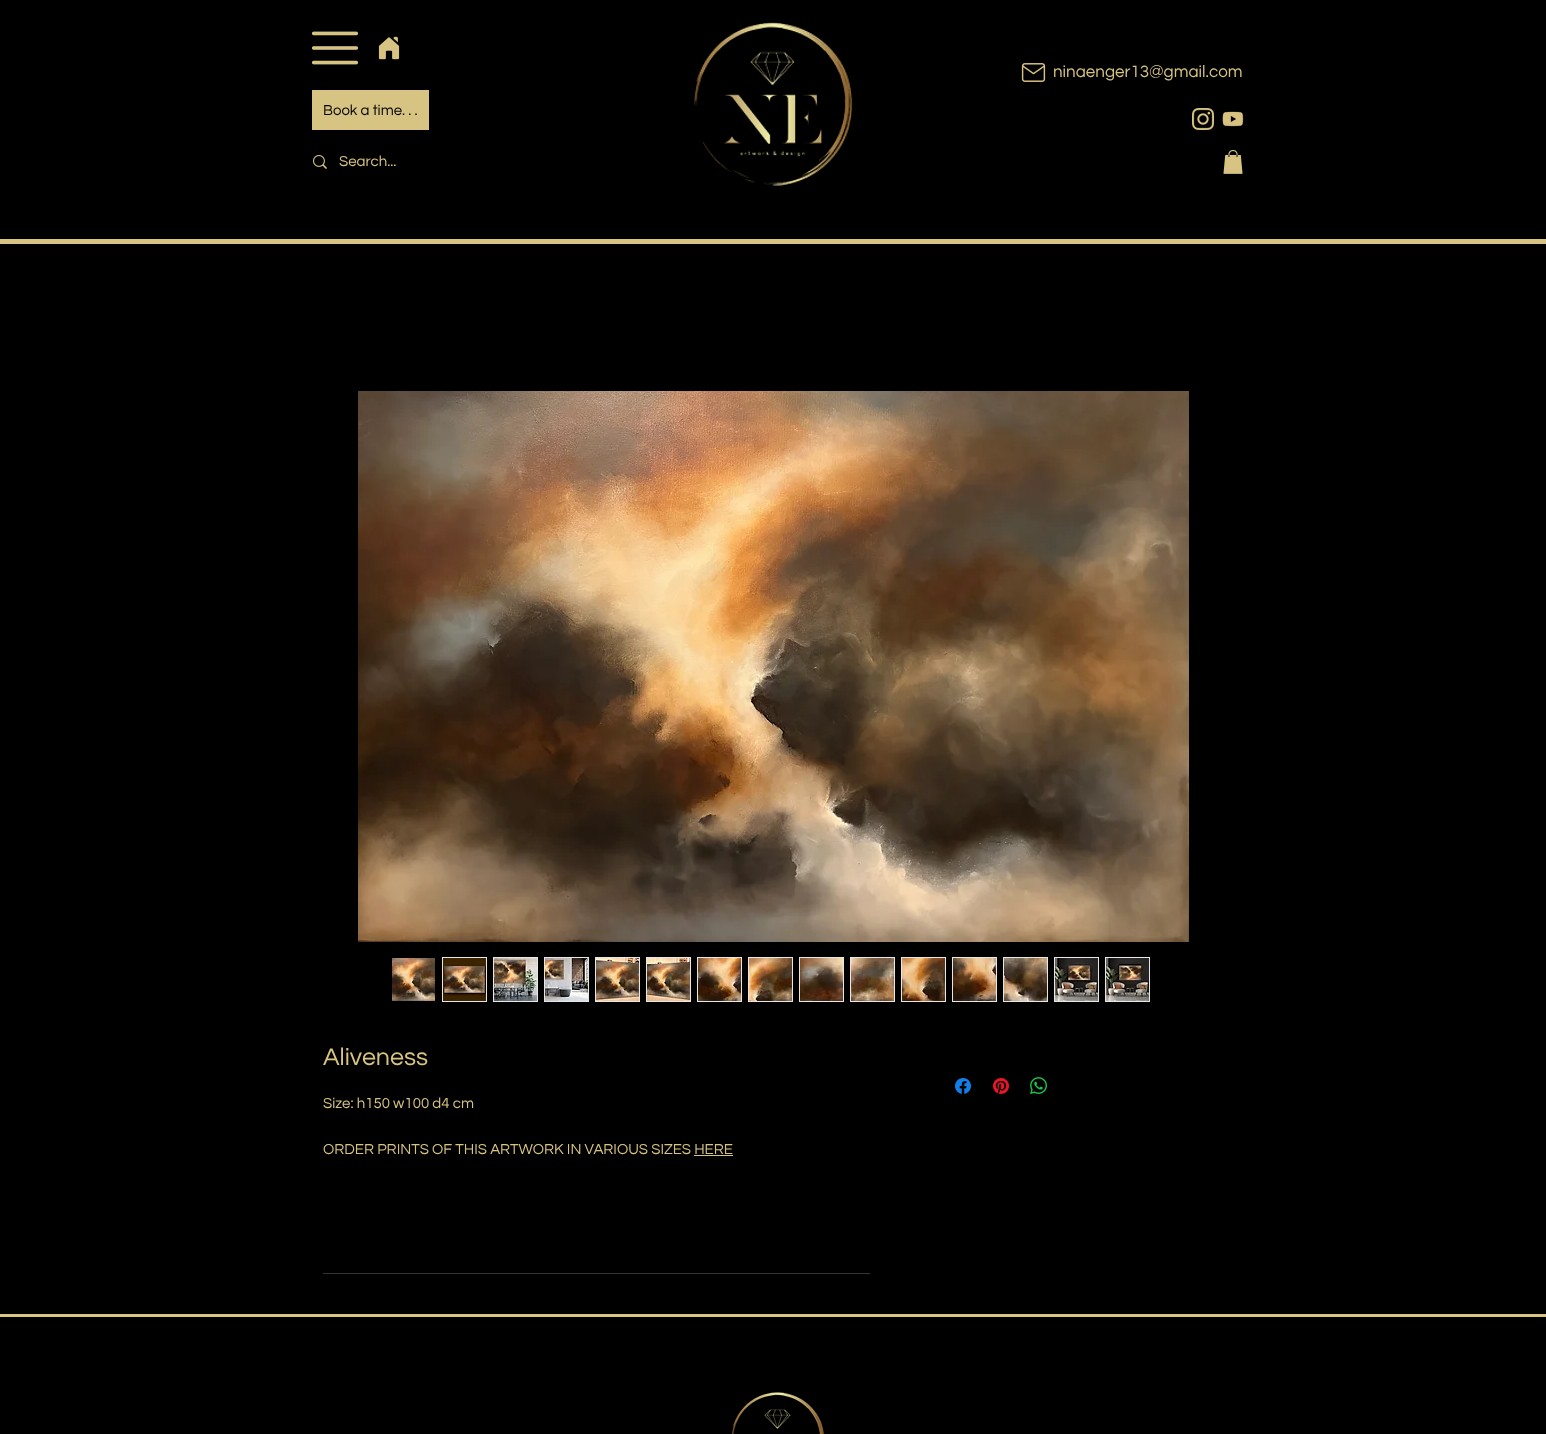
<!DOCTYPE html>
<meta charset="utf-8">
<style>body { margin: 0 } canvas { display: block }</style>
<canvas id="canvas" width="1546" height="1434"></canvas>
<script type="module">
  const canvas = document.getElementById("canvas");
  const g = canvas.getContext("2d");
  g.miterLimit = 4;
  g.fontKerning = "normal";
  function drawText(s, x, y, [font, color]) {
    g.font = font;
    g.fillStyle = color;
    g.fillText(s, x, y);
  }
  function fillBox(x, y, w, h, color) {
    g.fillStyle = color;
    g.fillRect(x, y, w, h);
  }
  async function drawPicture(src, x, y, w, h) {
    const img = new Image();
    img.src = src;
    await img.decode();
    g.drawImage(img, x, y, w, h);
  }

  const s1 = ["17px Questrial", "#D8C482"];
  const s2 = ["15px Questrial", "#000000"];
  const s3 = ["15px Questrial", "#D8C482"];
  const s4 = ["25px Questrial", "#D8C482"];

  fillBox(0, 0, 1546, 1434, "#000000");
  await drawPicture("pic1.png", 311, 31, 48, 34);
  await drawPicture("pic2.png", 378, 36, 22, 24);
  await drawPicture("pic3.png", 694, 22, 159, 164);
  await drawPicture("pic4.png", 1021, 63, 25, 19);
  drawText("ninaenger13@gmail.com", 1053, 77, s1);
  fillBox(312, 90, 117, 40, "#D8C482");
  drawText("Book a time. . .", 323, 115, s2);
  await drawPicture("pic5.png", 1192, 108, 22, 22);
  await drawPicture("pic6.png", 1222, 111, 22, 16);
  await drawPicture("pic7.png", 313, 155, 14, 14);
  drawText("Search...", 339, 166, s3);
  await drawPicture("pic8.png", 1223, 150, 20, 24);
  fillBox(0, 239, 1546, 5, "#D8C482");
  await drawPicture("pic9.png", 358, 391, 831, 551);
  await drawPicture("pic10.png", 392, 958, 43, 43);
  g.strokeStyle = "#E8E6E6";
  g.strokeRect(442.5, 957.5, 44, 44);
  await drawPicture("pic11.png", 443, 958, 43, 43);
  g.strokeRect(493.5, 957.5, 44, 44);
  await drawPicture("pic12.png", 494, 958, 43, 43);
  g.strokeRect(544.5, 957.5, 44, 44);
  await drawPicture("pic13.png", 545, 958, 43, 43);
  g.strokeRect(595.5, 957.5, 44, 44);
  await drawPicture("pic14.png", 596, 958, 43, 43);
  g.strokeRect(646.5, 957.5, 44, 44);
  await drawPicture("pic15.png", 647, 958, 43, 43);
  g.strokeRect(697.5, 957.5, 44, 44);
  await drawPicture("pic16.png", 698, 958, 43, 43);
  g.strokeRect(748.5, 957.5, 44, 44);
  await drawPicture("pic17.png", 749, 958, 43, 43);
  g.strokeRect(799.5, 957.5, 44, 44);
  await drawPicture("pic18.png", 800, 958, 43, 43);
  g.strokeRect(850.5, 957.5, 44, 44);
  await drawPicture("pic19.png", 851, 958, 43, 43);
  g.strokeRect(901.5, 957.5, 44, 44);
  await drawPicture("pic20.png", 902, 958, 43, 43);
  g.strokeRect(952.5, 957.5, 44, 44);
  await drawPicture("pic21.png", 953, 958, 43, 43);
  g.strokeRect(1003.5, 957.5, 44, 44);
  await drawPicture("pic22.png", 1004, 958, 43, 43);
  g.strokeRect(1054.5, 957.5, 44, 44);
  await drawPicture("pic23.png", 1055, 958, 43, 43);
  g.strokeRect(1105.5, 957.5, 44, 44);
  await drawPicture("pic24.png", 1106, 958, 43, 43);
  drawText("Aliveness", 323, 1065, s4);
  drawText("Size: h150 w100 d4 cm", 323, 1108, s3);
  drawText("ORDER PRINTS OF THIS ARTWORK IN VARIOUS SIZES HERE", 323, 1154, s3);
  fillBox(694, 1155, 39, 1, "#D8C482");
  fillBox(323, 1273, 547, 1, "#333333");
  await drawPicture("pic25.png", 955, 1078, 16, 16);
  await drawPicture("pic26.png", 993, 1078, 16, 16);
  await drawPicture("pic27.png", 1030, 1077, 17, 17);
  fillBox(0, 1314, 1546, 3, "#D8C482");
  await drawPicture("pic28.png", 732, 1392, 92, 42);
</script>
